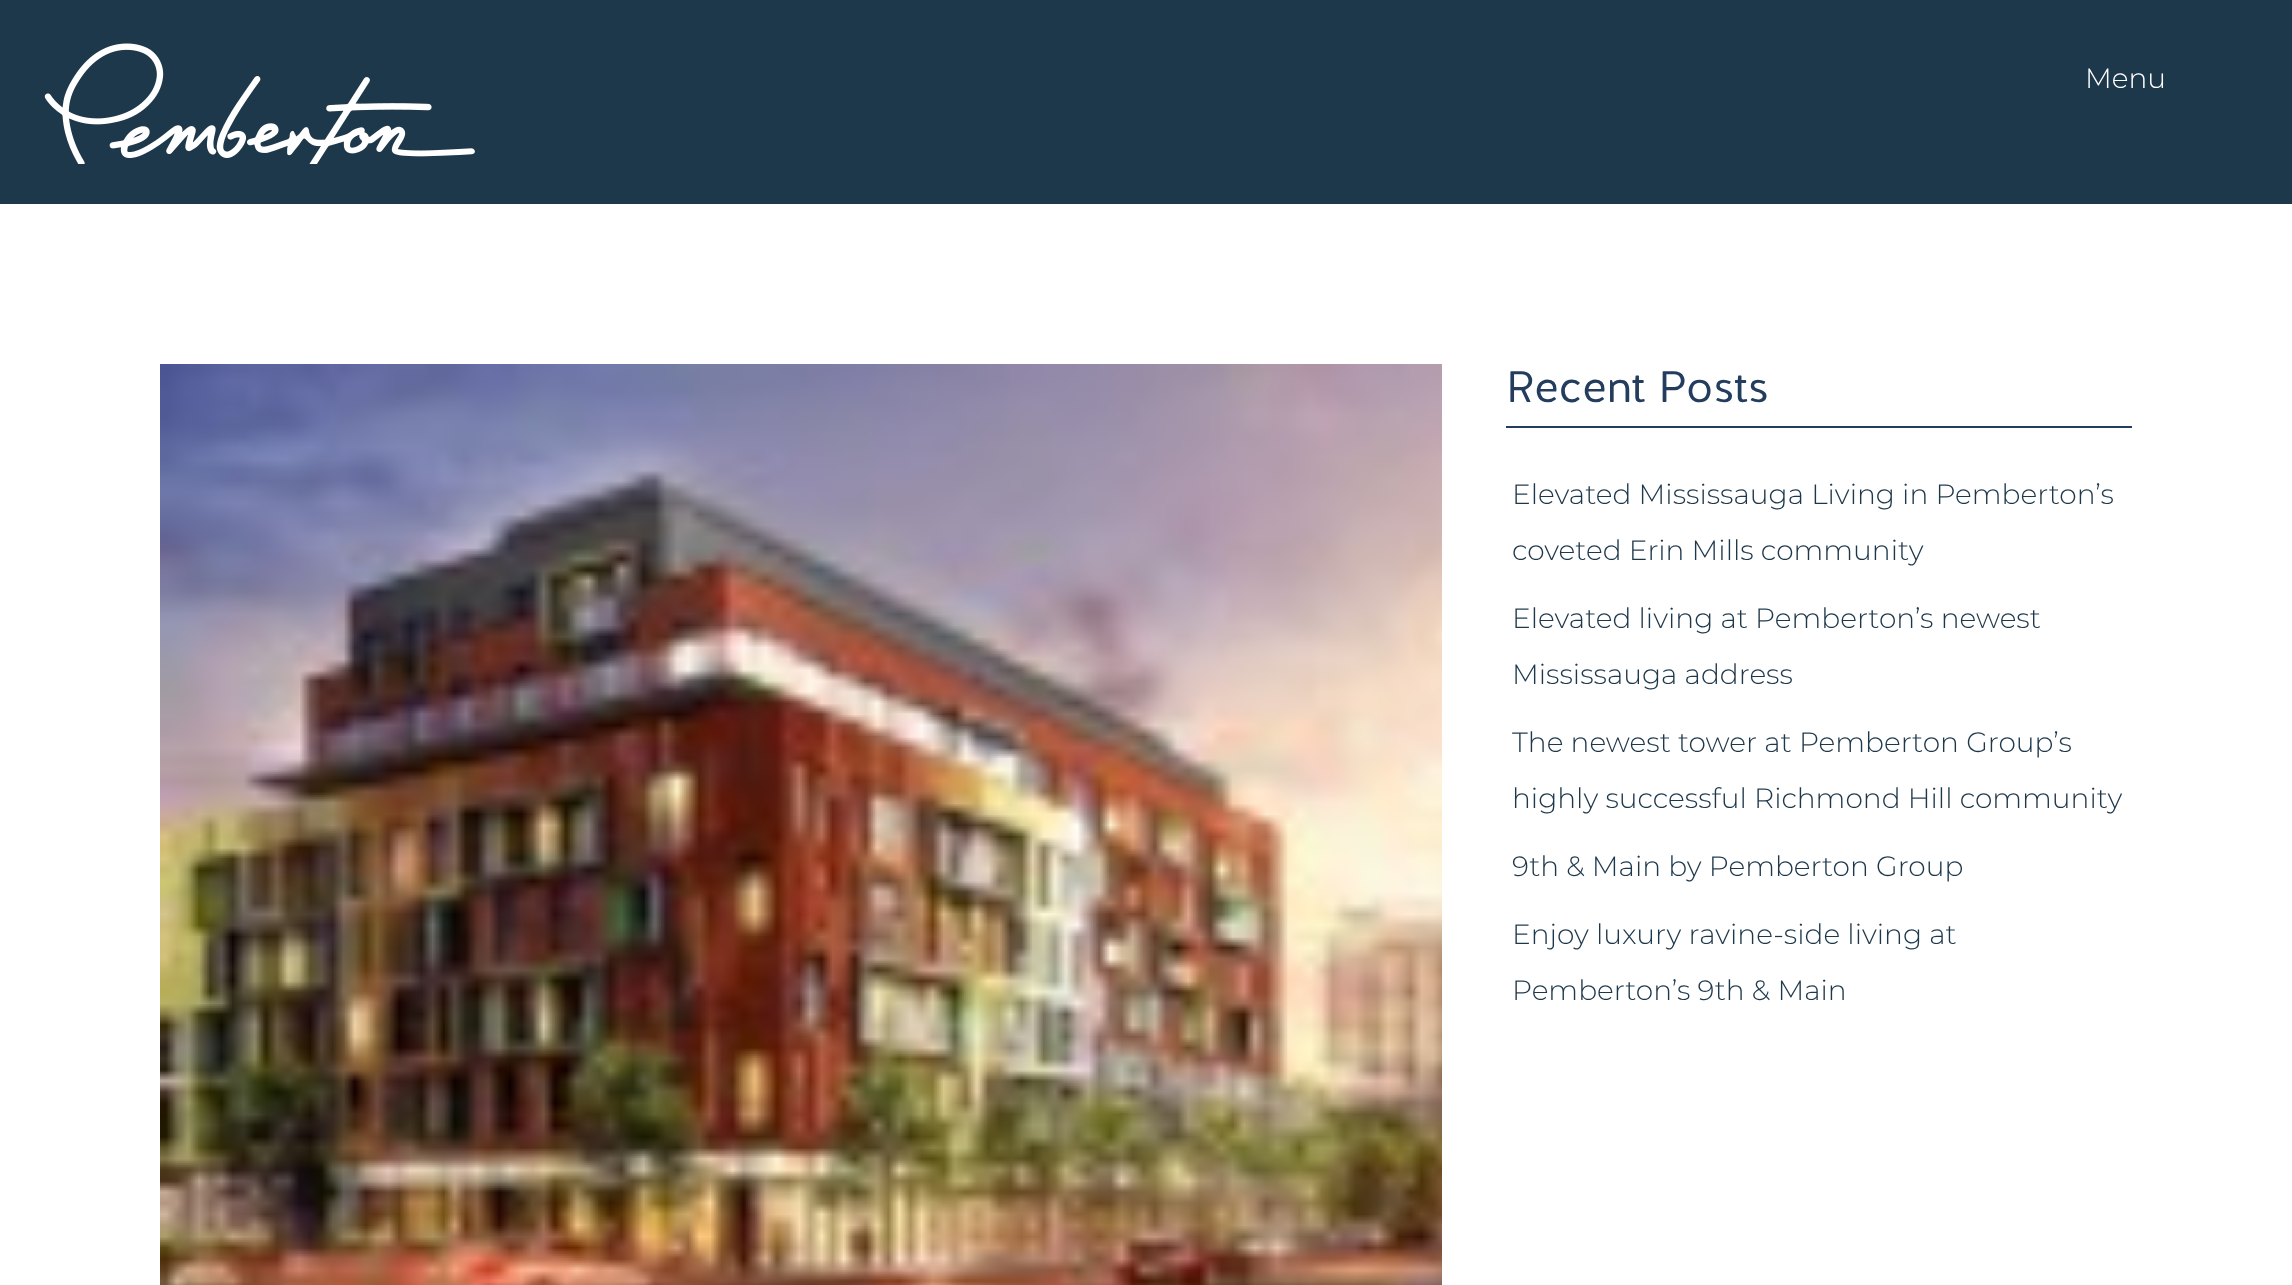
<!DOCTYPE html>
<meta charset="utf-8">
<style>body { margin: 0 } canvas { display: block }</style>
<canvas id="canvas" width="2292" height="1285"></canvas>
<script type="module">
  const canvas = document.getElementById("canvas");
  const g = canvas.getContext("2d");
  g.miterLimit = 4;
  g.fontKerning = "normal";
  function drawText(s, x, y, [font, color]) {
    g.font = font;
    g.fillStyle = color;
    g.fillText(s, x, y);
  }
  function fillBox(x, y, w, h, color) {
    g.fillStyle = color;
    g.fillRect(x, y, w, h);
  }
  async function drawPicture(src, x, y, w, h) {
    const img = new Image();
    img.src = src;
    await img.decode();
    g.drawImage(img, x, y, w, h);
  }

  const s1 = ["300 28px Montserrat", "#FFFFFF"];
  const s2 = ["44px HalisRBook", "#243D5F"];
  const s3 = ["300 28px Montserrat", "#1E384B"];

  fillBox(0, 0, 2292, 1285, "#FFFFFF");
  fillBox(0, 0, 2292, 204, "#1E384B");
  await drawPicture("pic1.png", 44, 43, 431, 121);
  drawText("Menu", 2085, 88, s1);
  await drawPicture("pic2.png", 160, 364, 1282, 921);
  fillBox(1506, 426, 626, 2, "#243D5F");
  drawText("Recent Posts", 1506, 402, s2);
  drawText("Elevated Mississauga Living in Pemberton’s", 1512, 504, s3);
  drawText("coveted Erin Mills community", 1512, 560, s3);
  drawText("Elevated living at Pemberton’s newest", 1512, 628, s3);
  drawText("Mississauga address", 1512, 684, s3);
  drawText("The newest tower at Pemberton Group’s", 1512, 752, s3);
  drawText("highly successful Richmond Hill community", 1512, 808, s3);
  drawText("9th & Main by Pemberton Group", 1512, 876, s3);
  drawText("Enjoy luxury ravine-side living at", 1512, 944, s3);
  drawText("Pemberton’s 9th & Main", 1512, 1000, s3);
</script>
